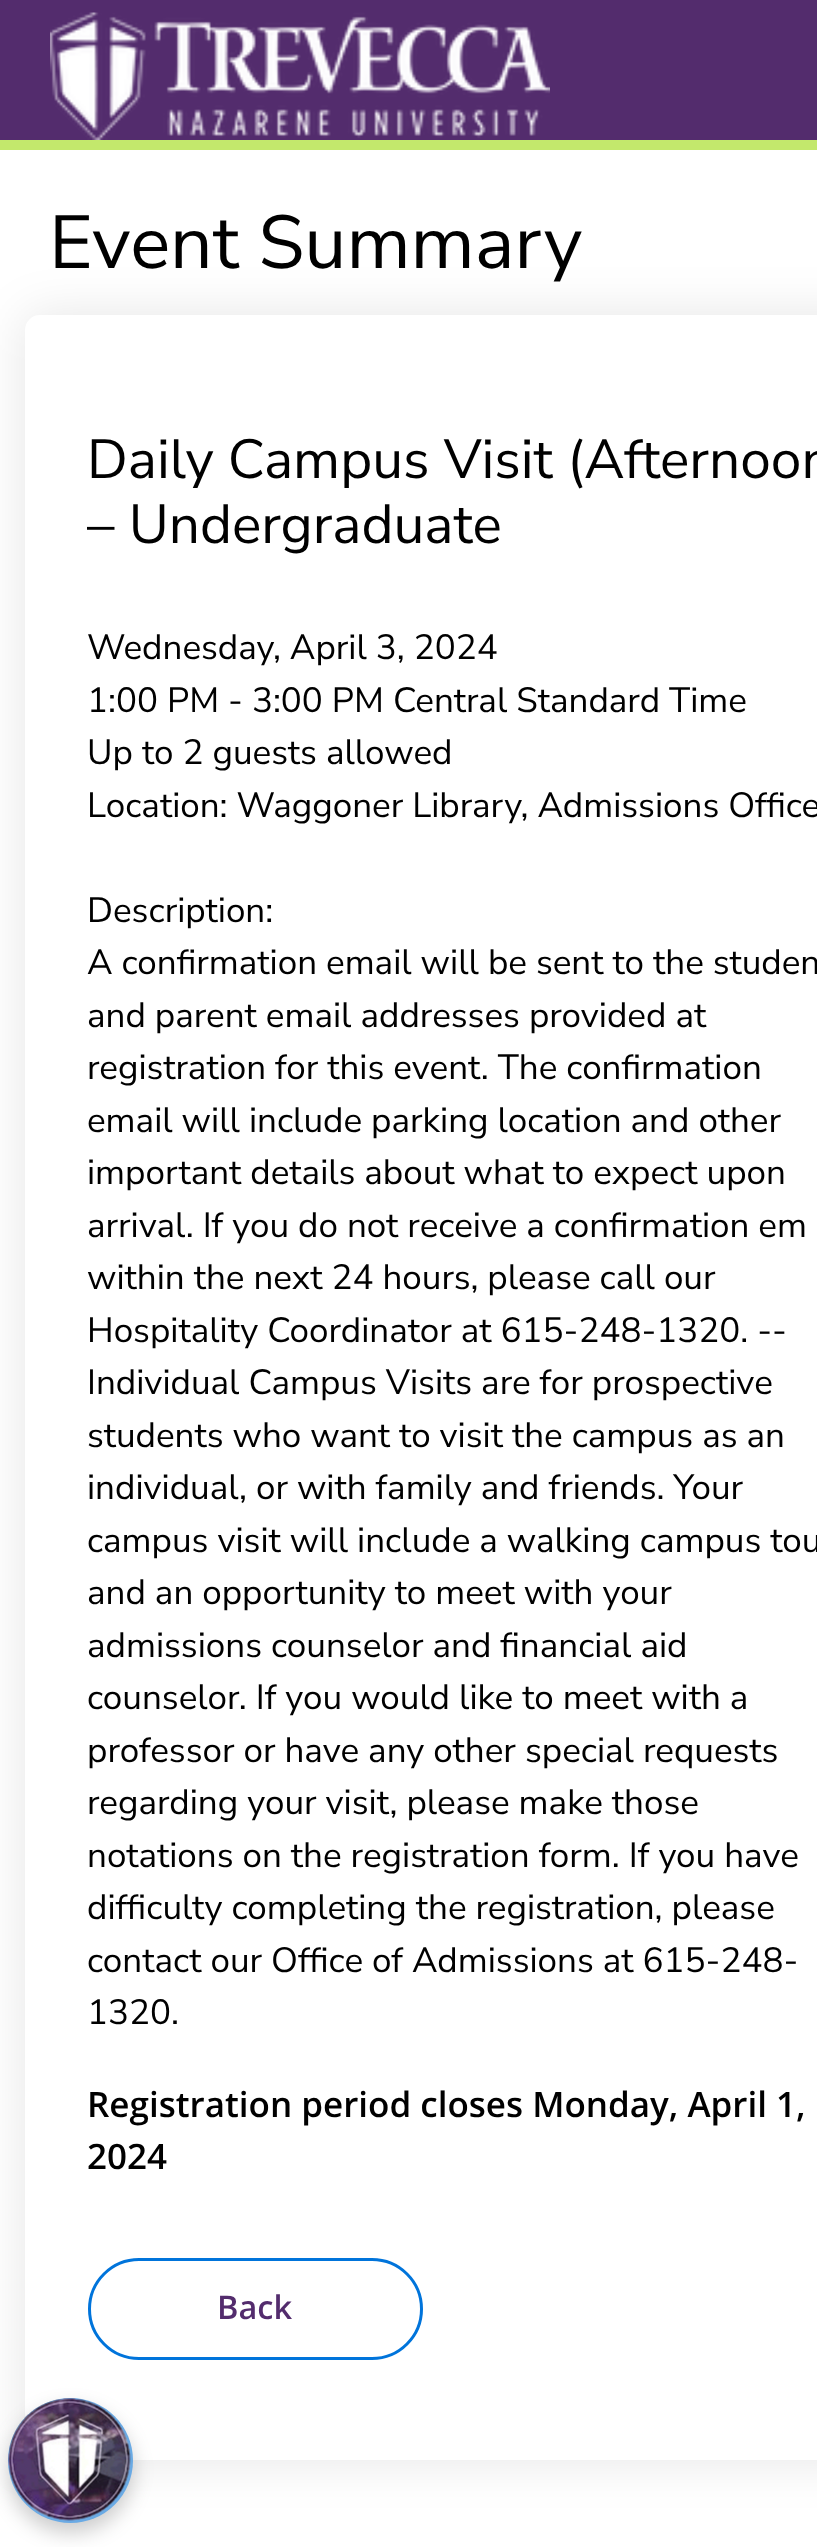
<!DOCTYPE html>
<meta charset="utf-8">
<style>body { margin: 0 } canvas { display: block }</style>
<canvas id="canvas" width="817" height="2547"></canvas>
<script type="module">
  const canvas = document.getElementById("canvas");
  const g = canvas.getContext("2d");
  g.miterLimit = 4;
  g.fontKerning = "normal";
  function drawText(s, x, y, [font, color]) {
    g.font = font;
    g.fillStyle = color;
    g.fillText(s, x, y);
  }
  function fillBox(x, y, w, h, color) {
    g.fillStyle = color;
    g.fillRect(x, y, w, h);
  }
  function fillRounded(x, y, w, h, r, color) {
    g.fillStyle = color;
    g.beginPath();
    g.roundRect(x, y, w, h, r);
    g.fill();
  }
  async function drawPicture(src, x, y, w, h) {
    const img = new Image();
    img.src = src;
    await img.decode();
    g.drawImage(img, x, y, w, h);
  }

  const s1 = ["75px Nunito Sans", "#000000"];
  const s2 = ["55px Nunito Sans", "#000000"];
  const s3 = ["35px Nunito Sans", "#000000"];
  const s4 = ["600 35px Open Sans", "#000000"];
  const s5 = ["600 32.5px Open Sans", "#532C6D"];

  fillBox(0, 0, 817, 2547, "#FFFFFF");
  fillBox(0, 0, 817, 140, "#532C6D");
  fillBox(0, 140, 817, 10, "#C3E86C");
  await drawPicture("pic1.png", 50, 12, 500, 128);
  g.fillStyle = "rgba(0, 0, 0, 0.1)";
  g.filter = "blur(25px)";
  g.beginPath();
  g.roundRect(25, 315, 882, 2145, 15);
  g.fill();
  g.filter = "none";
  drawText("Event Summary", 49, 268, s1);
  fillRounded(25, 315, 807, 2145, 15, "#FFFFFF");
  drawText("Daily Campus Visit (Afternoon", 87, 478, s2);
  drawText("– Undergraduate", 87, 543, s2);
  drawText("Wednesday, April 3, 2024", 87, 659, s3);
  drawText("1:00 PM - 3:00 PM Central Standard Time", 87, 712, s3);
  drawText("Up to 2 guests allowed", 87, 764, s3);
  drawText("Location: Waggoner Library, Admissions Office", 87, 817, s3);
  drawText("Description:", 87, 922, s3);
  drawText("A confirmation email will be sent to the studen", 87, 974, s3);
  drawText("and parent email addresses provided at", 87, 1027, s3);
  drawText("registration for this event. The confirmation", 87, 1079, s3);
  drawText("email will include parking location and other", 87, 1132, s3);
  drawText("important details about what to expect upon", 87, 1184, s3);
  drawText("arrival. If you do not receive a confirmation em", 87, 1237, s3);
  drawText("within the next 24 hours, please call our", 87, 1289, s3);
  drawText("Hospitality Coordinator at 615-248-1320. --", 87, 1342, s3);
  drawText("Individual Campus Visits are for prospective", 87, 1394, s3);
  drawText("students who want to visit the campus as an", 87, 1447, s3);
  drawText("individual, or with family and friends. Your", 87, 1499, s3);
  drawText("campus visit will include a walking campus tou", 87, 1552, s3);
  drawText("and an opportunity to meet with your", 87, 1604, s3);
  drawText("admissions counselor and financial aid", 87, 1657, s3);
  drawText("counselor. If you would like to meet with a", 87, 1709, s3);
  drawText("professor or have any other special requests", 87, 1762, s3);
  drawText("regarding your visit, please make those", 87, 1814, s3);
  drawText("notations on the registration form. If you have", 87, 1867, s3);
  drawText("difficulty completing the registration, please", 87, 1919, s3);
  drawText("contact our Office of Admissions at 615-248-", 87, 1972, s3);
  drawText("1320.", 87, 2024, s3);
  drawText("Registration period closes Monday, April 1,", 87, 2117, s4);
  drawText("2024", 87, 2169, s4);
  g.beginPath();
  g.roundRect(89.5, 2259.5, 332, 99, 49.5);
  g.strokeStyle = "#0074DB";
  g.lineWidth = 3;
  g.stroke();
  drawText("Back", 217, 2319, s5);
  g.fillStyle = "rgba(0, 0, 0, 0.2)";
  g.filter = "blur(10px)";
  g.beginPath();
  g.roundRect(8, 2408, 125, 125, 62.5);
  g.fill();
  g.filter = "none";
  g.fillStyle = "#6AAAE4";
  g.beginPath();
  g.arc(70.5, 2460.5, 62.5, 0, Math.PI * 2);
  g.fill();
  await drawPicture("pic2.png", 8, 2398, 123, 123);
</script>
